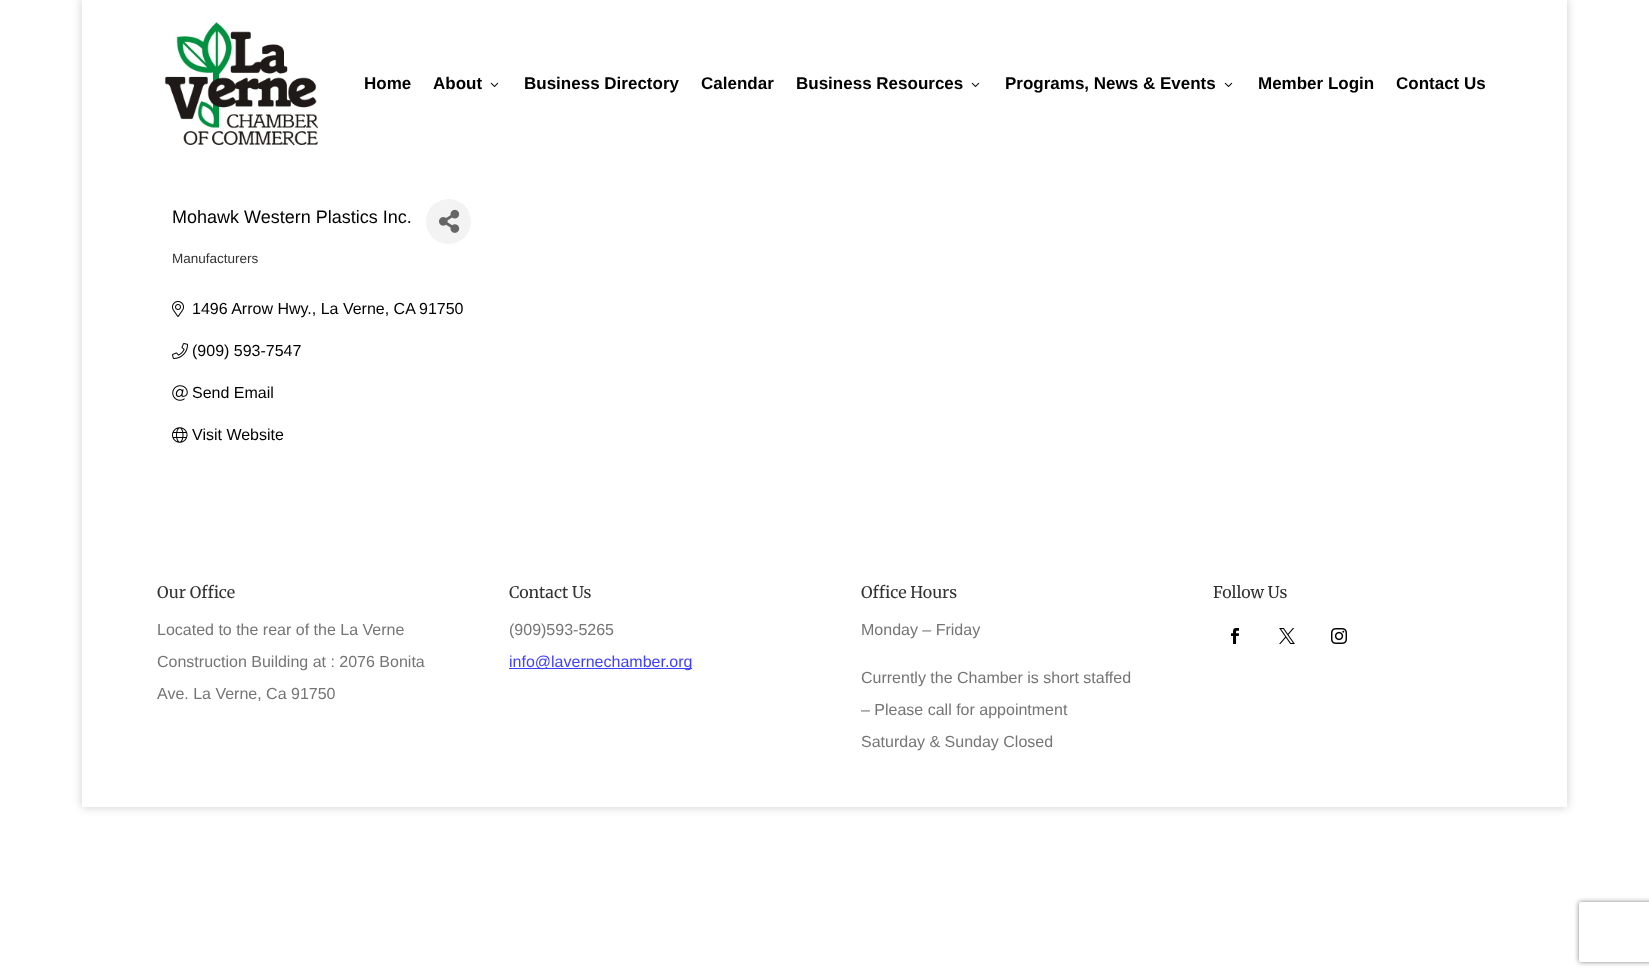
<!DOCTYPE html>
<meta charset="utf-8">
<style>body { margin: 0 } canvas { display: block }</style>
<canvas id="canvas" width="1649" height="976"></canvas>
<script type="module">
  const canvas = document.getElementById("canvas");
  const g = canvas.getContext("2d");
  g.miterLimit = 4;
  g.fontKerning = "normal";
  function drawText(s, x, y, [font, color]) {
    g.font = font;
    g.fillStyle = color;
    g.fillText(s, x, y);
  }
  function fillBox(x, y, w, h, color) {
    g.fillStyle = color;
    g.fillRect(x, y, w, h);
  }
  async function drawPicture(src, x, y, w, h) {
    const img = new Image();
    img.src = src;
    await img.decode();
    g.drawImage(img, x, y, w, h);
  }

  const s1 = ["bold 17px Liberation Sans", "#000000"];
  const s2 = ["18px Liberation Sans", "#000000"];
  const s3 = ["13.5px Liberation Sans", "#333333"];
  const s4 = ["16px Liberation Sans", "#000000"];
  const s5 = ["300 16px Merriweather", "#333333"];
  const s6 = ["16px Liberation Sans", "#757575"];
  const s7 = ["16px Liberation Sans", "#3F3FFF"];

  fillBox(0, 0, 1649, 976, "#FFFFFF");
  g.save();
  g.beginPath();
  g.moveTo(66, 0);
  g.lineTo(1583, 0);
  g.lineTo(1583, 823);
  g.lineTo(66, 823);
  g.closePath();
  g.moveTo(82, -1);
  g.lineTo(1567, -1);
  g.lineTo(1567, 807);
  g.lineTo(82, 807);
  g.closePath();
  g.clip("evenodd");
  g.fillStyle = "rgba(0, 0, 0, 0.2)";
  g.filter = "blur(5px)";
  g.beginPath();
  g.rect(82, -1, 1485, 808);
  g.fill();
  g.filter = "none";
  g.restore();
  await drawPicture("pic1.png", 165, 22, 153, 124);
  drawText("Home", 364, 89, s1);
  drawText("About", 433, 89, s1);
  await drawPicture("pic2.png", 490, 82, 9, 5);
  drawText("Business Directory", 524, 89, s1);
  drawText("Calendar", 701, 89, s1);
  drawText("Business Resources", 796, 89, s1);
  await drawPicture("pic2.png", 971, 82, 9, 5);
  drawText("Programs, News & Events", 1005, 89, s1);
  await drawPicture("pic2.png", 1224, 82, 9, 5);
  drawText("Member Login", 1258, 89, s1);
  drawText("Contact Us", 1396, 89, s1);
  drawText("Mohawk Western Plastics Inc.", 172, 223, s2);
  g.fillStyle = "#F3F3F3";
  g.beginPath();
  g.arc(448.5, 221.5, 22.5, 0, Math.PI * 2);
  g.fill();
  await drawPicture("pic3.png", 439, 209, 21, 24);
  drawText("Manufacturers", 172, 263, s3);
  await drawPicture("pic4.png", 172, 301, 12, 16);
  drawText("1496 Arrow Hwy., La Verne, CA", 192, 314, s4);
  drawText("91750", 419, 314, s4);
  await drawPicture("pic5.png", 172, 343, 16, 16);
  drawText("(909) 593-7547", 192, 356, s4);
  await drawPicture("pic6.png", 172, 385, 16, 16);
  drawText("Send Email", 192, 398, s4);
  await drawPicture("pic7.png", 172, 427, 16, 16);
  drawText("Visit Website", 192, 440, s4);
  drawText("Our Office", 157, 598, s5);
  drawText("Located to the rear of the La Verne", 157, 635, s6);
  drawText("Construction Building at : 2076 Bonita", 157, 667, s6);
  drawText("Ave. La Verne, Ca 91750", 157, 699, s6);
  drawText("Contact Us", 509, 598, s5);
  drawText("(909)593-5265", 509, 635, s6);
  fillBox(509, 668, 183, 1, "#3F3FFF");
  drawText("info@lavernechamber.org", 509, 667, s7);
  drawText("Office Hours", 861, 598, s5);
  drawText("Monday – Friday", 861, 635, s6);
  drawText("Currently the Chamber is short staffed", 861, 683, s6);
  drawText("– Please call for appointment", 861, 715, s6);
  drawText("Saturday & Sunday Closed", 861, 747, s6);
  drawText("Follow Us", 1213, 598, s5);
  await drawPicture("pic8.png", 1231, 628, 8, 16);
  await drawPicture("pic9.png", 1279, 628, 16, 16);
  await drawPicture("pic10.png", 1331, 628, 16, 16);
  g.save();
  g.beginPath();
  g.moveTo(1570, 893);
  g.lineTo(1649, 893);
  g.lineTo(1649, 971);
  g.lineTo(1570, 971);
  g.closePath();
  g.moveTo(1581, 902);
  g.lineTo(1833, 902);
  g.bezierCurveTo(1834, 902, 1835, 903, 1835, 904);
  g.lineTo(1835, 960);
  g.bezierCurveTo(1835, 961, 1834, 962, 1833, 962);
  g.lineTo(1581, 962);
  g.bezierCurveTo(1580, 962, 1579, 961, 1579, 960);
  g.lineTo(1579, 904);
  g.bezierCurveTo(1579, 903, 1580, 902, 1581, 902);
  g.closePath();
  g.clip("evenodd");
  g.fillStyle = "#808080";
  g.filter = "blur(2.5px)";
  g.beginPath();
  g.roundRect(1579, 902, 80, 60, 2);
  g.fill();
  g.filter = "none";
  g.restore();
</script>
